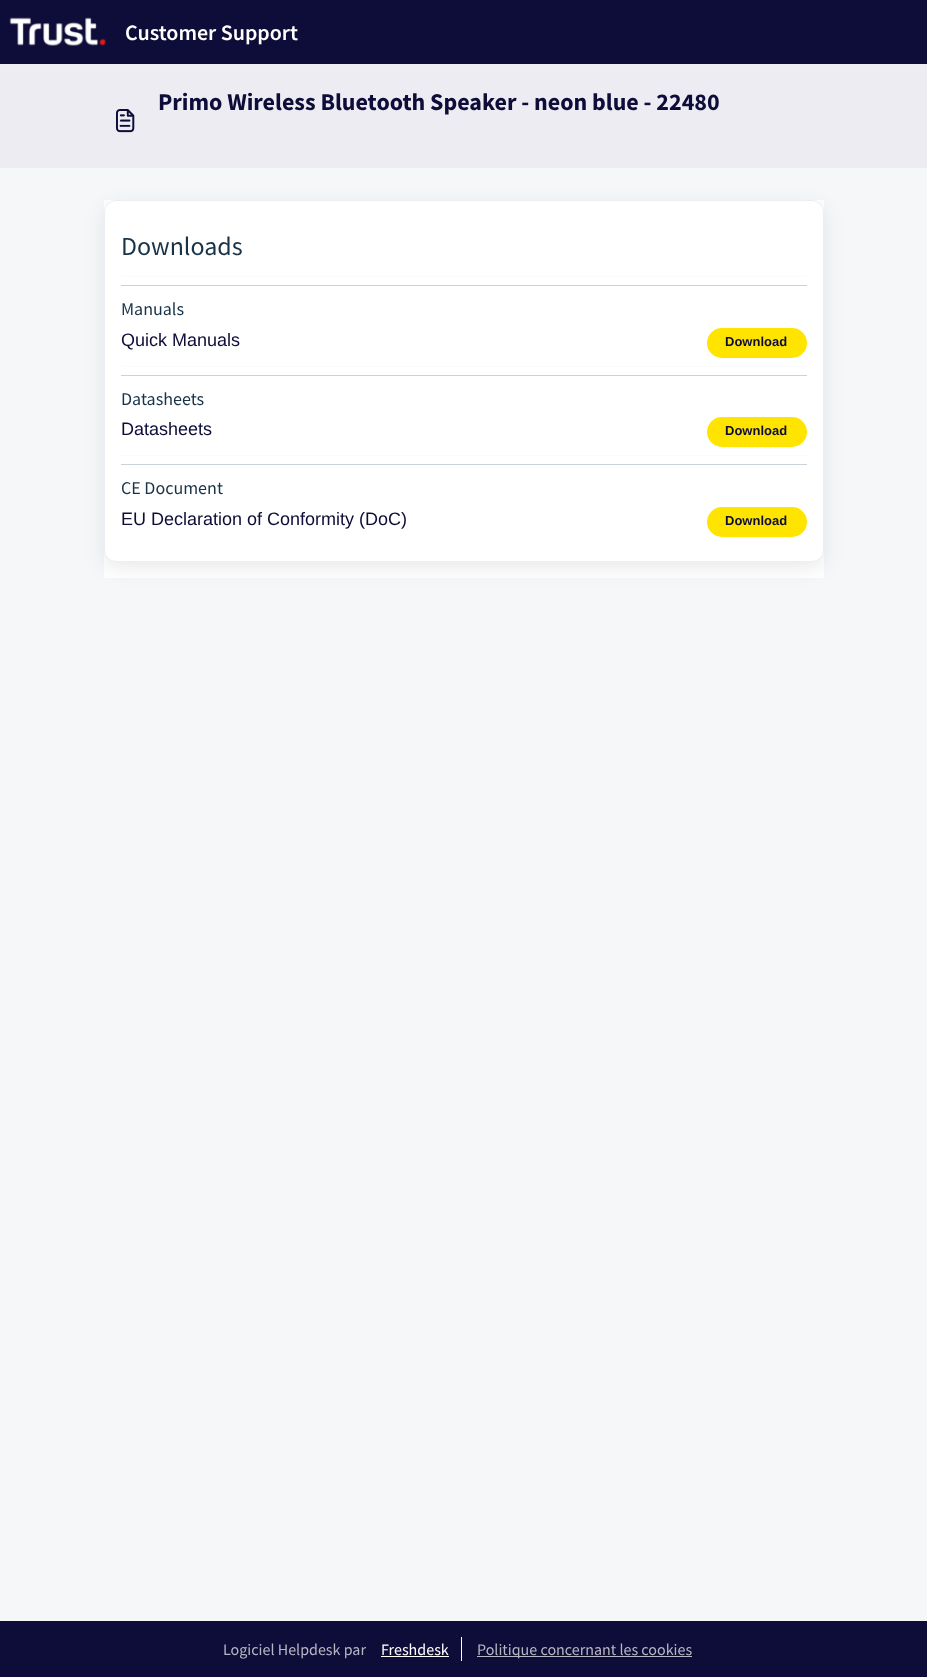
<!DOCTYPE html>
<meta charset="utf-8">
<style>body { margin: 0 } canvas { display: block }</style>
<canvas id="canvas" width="927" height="1677"></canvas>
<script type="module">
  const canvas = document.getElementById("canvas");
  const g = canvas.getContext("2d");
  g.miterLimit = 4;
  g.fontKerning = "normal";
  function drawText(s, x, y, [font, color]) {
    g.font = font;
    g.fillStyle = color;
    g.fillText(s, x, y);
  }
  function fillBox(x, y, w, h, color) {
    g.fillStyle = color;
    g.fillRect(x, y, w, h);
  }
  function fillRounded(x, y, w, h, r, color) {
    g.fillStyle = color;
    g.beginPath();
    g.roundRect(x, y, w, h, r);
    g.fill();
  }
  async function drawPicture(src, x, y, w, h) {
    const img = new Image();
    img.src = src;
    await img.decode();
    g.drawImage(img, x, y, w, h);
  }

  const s1 = ["600 22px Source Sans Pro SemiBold", "#FFFFFF"];
  const s2 = ["bold 24px Source Sans Pro", "#0E0C38"];
  const s3 = ["26px Source Sans Pro", "#183247"];
  const s4 = ["18px Source Sans Pro", "#183247"];
  const s5 = ["18px Liberation Sans", "#0E0C38"];
  const s6 = ["bold 13px Liberation Sans", "#0E0C38"];
  const s7 = ["16px Source Sans Pro", "#B7B6C3"];
  const s8 = ["16px Source Sans Pro", "#FFFFFF"];

  fillBox(0, 0, 927, 1677, "#F5F7F9");
  fillBox(0, 0, 927, 64, "#0E0C38");
  fillBox(0, 64, 927, 1, "#EBEFF3");
  await drawPicture("pic1.png", 9, 17, 97, 29);
  drawText("Customer Support", 125, 40, s1);
  fillBox(0, 65, 927, 103, "#EDECF3");
  drawText("Primo Wireless Bluetooth Speaker - neon blue - 22480", 158, 110, s2);
  await drawPicture("pic2.png", 116, 109, 19, 24);
  fillBox(104, 200, 720, 378, "#FFFFFF");
  g.fillStyle = "rgba(39, 49, 58, 0.1)";
  g.filter = "blur(9.5px)";
  g.beginPath();
  g.roundRect(104, 206, 720, 362, 12);
  g.fill();
  g.filter = "none";
  g.fillStyle = "#FFFFFF";
  g.beginPath();
  g.roundRect(104.5, 200.5, 719, 361, 11.5);
  g.fill();
  g.strokeStyle = "#EBEFF3";
  g.stroke();
  drawText("Downloads", 121, 255, s3);
  fillBox(121, 276, 686, 1, "#FAFBFC");
  fillBox(121, 285, 686, 1, "#C9D2D9");
  drawText("Manuals", 121, 315, s4);
  drawText("Quick Manuals", 121, 346, s5);
  fillRounded(707, 328, 100, 30, 15, "#FFE400");
  drawText("Download", 725, 346, s6);
  fillBox(121, 366, 686, 1, "#FAFBFC");
  fillBox(121, 375, 686, 1, "#C9D2D9");
  drawText("Datasheets", 121, 405, s4);
  drawText("Datasheets", 121, 435, s5);
  fillRounded(707, 417, 100, 30, 15, "#FFE400");
  drawText("Download", 725, 435, s6);
  fillBox(121, 455, 686, 1, "#FAFBFC");
  fillBox(121, 464, 686, 1, "#C9D2D9");
  drawText("CE Document", 121, 494, s4);
  drawText("EU Declaration of Conformity (DoC)", 121, 525, s5);
  fillRounded(707, 507, 100, 30, 15, "#FFE400");
  drawText("Download", 725, 525, s6);
  fillBox(0, 1621, 927, 56, "#0E0C38");
  drawText("Logiciel Helpdesk par", 223, 1655, s7);
  fillBox(461, 1637, 1, 24, "#FFFFFF");
  drawText("Freshdesk", 381, 1655, s8);
  fillBox(381, 1656, 68, 1, "#FFFFFF");
  fillBox(477, 1656, 215, 1, "#B7B6C3");
  drawText("Politique concernant les cookies", 477, 1655, s7);
</script>
